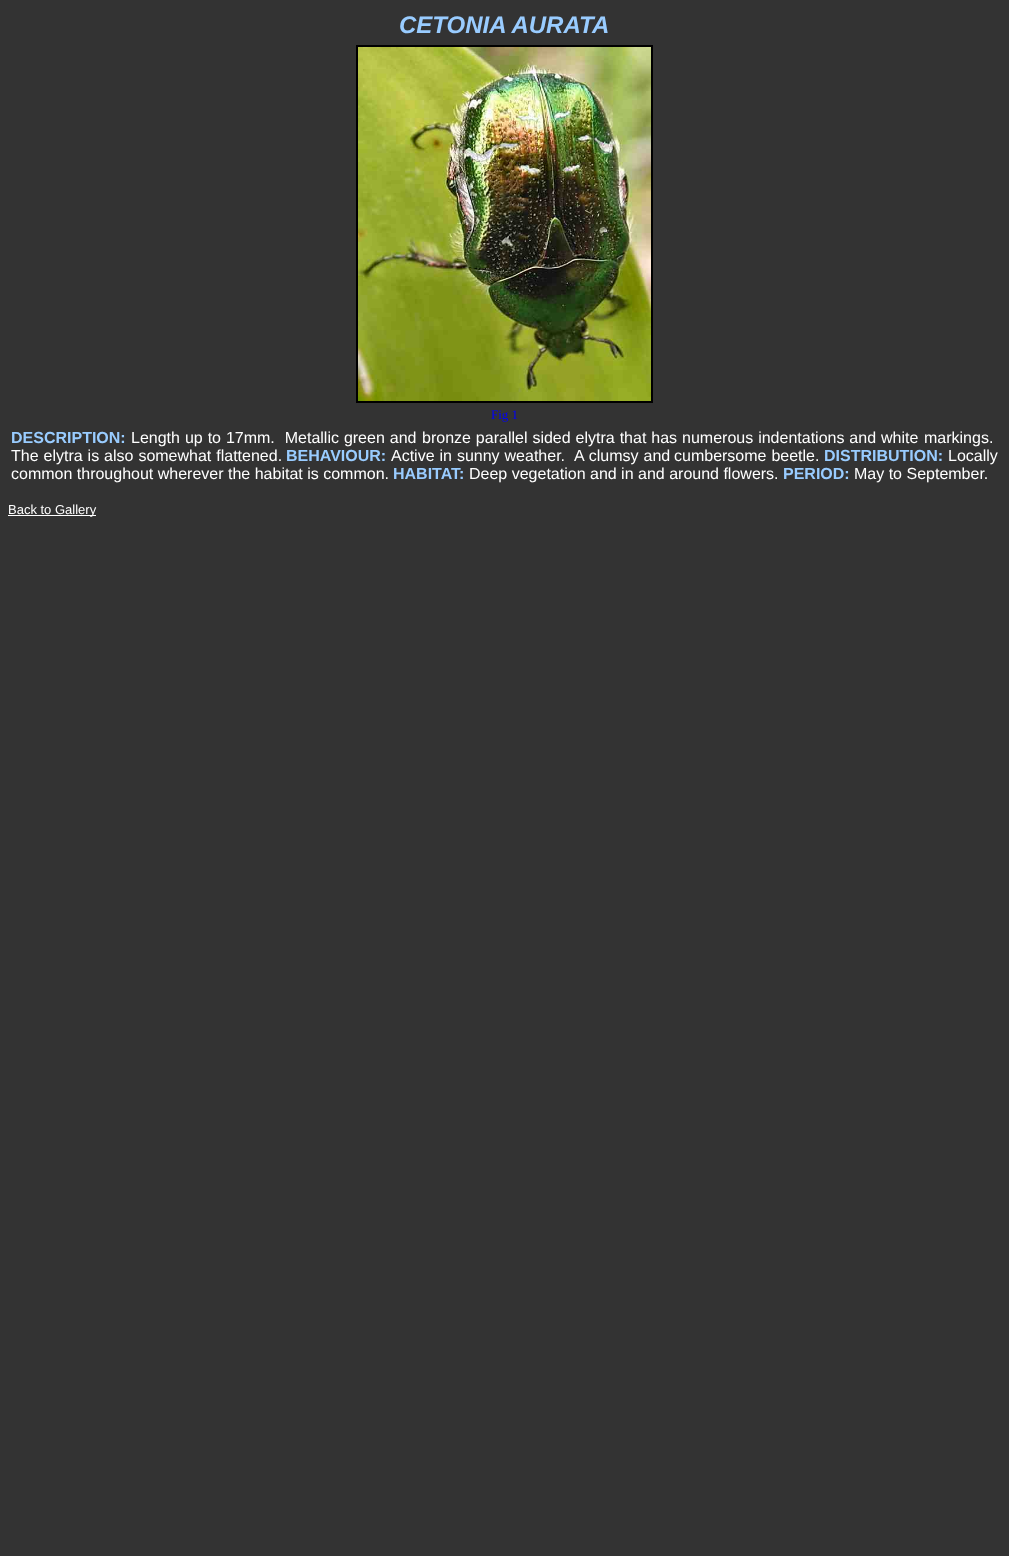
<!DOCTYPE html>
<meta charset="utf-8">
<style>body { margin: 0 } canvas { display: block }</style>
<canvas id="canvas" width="1009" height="1556"></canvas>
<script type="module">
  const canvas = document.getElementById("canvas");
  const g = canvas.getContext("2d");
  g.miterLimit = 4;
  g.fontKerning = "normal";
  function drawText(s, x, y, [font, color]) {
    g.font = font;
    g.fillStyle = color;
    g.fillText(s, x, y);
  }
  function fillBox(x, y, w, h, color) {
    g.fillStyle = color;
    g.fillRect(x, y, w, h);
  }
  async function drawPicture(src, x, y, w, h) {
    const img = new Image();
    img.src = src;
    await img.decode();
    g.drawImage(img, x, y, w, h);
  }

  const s1 = ["italic bold 24px Liberation Sans", "#99CCFF"];
  const s2 = ["13px Liberation Serif", "#0000FF"];
  const s3 = ["bold 16px Liberation Sans", "#99CCFF"];
  const s4 = ["16px Liberation Sans", "#FFFFFF"];
  const s5 = ["13px Liberation Sans", "#FFFFFF"];

  fillBox(0, 0, 1009, 1556, "#333333");
  drawText("CETONIA AURATA", 399, 33, s1);
  g.strokeStyle = "#000000";
  g.lineWidth = 2;
  g.strokeRect(357, 46, 295, 356);
  await drawPicture("pic1.png", 358, 47, 293, 354);
  drawText("Fig 1", 491, 419, s2);
  drawText("DESCRIPTION:", 11, 443, s3);
  g.wordSpacing = "0.5px";
  drawText("Length up to 17mm.  Metallic green and", 131, 443, s4);
  drawText("bronze parallel sided elytra that has numerous indentations and white", 422, 443, s4);
  g.wordSpacing = "0px";
  drawText("markings.", 924, 443, s4);
  g.wordSpacing = "0.5px";
  drawText("The elytra is also somewhat flattened.", 11, 461, s4);
  g.wordSpacing = "0px";
  drawText("BEHAVIOUR:", 286, 461, s3);
  g.wordSpacing = "0.5px";
  drawText("Active in sunny weather.  A clumsy and", 391, 461, s4);
  drawText("cumbersome beetle.", 674, 461, s4);
  g.wordSpacing = "0px";
  drawText("DISTRIBUTION:", 824, 461, s3);
  drawText("Locally", 948, 461, s4);
  drawText("common throughout wherever the habitat is common.", 11, 479, s4);
  drawText("HABITAT:", 393, 479, s3);
  drawText("Deep vegetation and in and around flowers.", 469, 479, s4);
  drawText("PERIOD:", 783, 479, s3);
  drawText("May to September.", 854, 479, s4);
  fillBox(8, 515, 88, 1, "#FFFFFF");
  drawText("Back to Gallery", 8, 514, s5);
</script>
